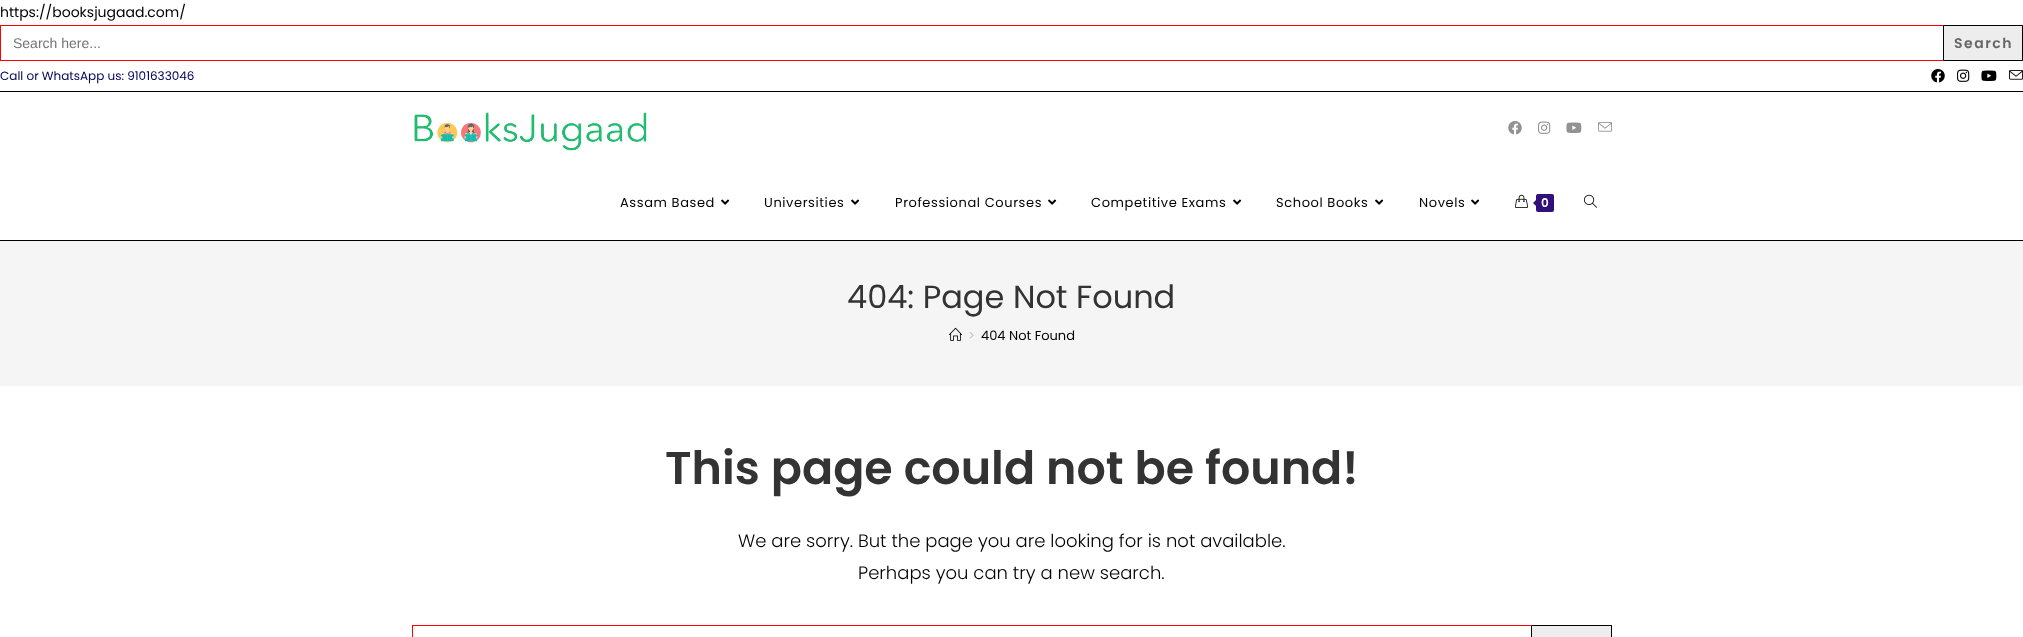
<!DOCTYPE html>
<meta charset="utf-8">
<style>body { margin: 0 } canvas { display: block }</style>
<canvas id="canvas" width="2023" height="637"></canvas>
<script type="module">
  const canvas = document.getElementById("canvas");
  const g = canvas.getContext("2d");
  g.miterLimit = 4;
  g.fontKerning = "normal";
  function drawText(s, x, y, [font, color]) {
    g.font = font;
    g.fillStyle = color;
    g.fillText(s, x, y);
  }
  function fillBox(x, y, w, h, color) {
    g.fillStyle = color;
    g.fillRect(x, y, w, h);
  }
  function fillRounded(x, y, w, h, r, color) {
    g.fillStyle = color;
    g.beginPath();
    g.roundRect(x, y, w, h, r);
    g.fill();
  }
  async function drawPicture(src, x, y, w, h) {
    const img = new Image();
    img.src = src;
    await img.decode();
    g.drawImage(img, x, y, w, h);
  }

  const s1 = ["14px Poppins", "#000000"];
  const s2 = ["14px Liberation Sans", "#757575"];
  const s3 = ["600 14px Poppins", "#666666"];
  const s4 = ["12px Poppins", "#000159"];
  const s5 = ["13px Poppins", "#000000"];
  const s6 = ["600 12px Poppins", "#FFFFFF"];
  const s7 = ["32px Poppins", "#333333"];
  const s8 = ["13px Poppins", "#C6C6C6"];
  const s9 = ["600 46px Poppins", "#333333"];
  const s10 = ["300 18px Poppins", "#000000"];

  fillBox(0, 0, 2023, 637, "#FFFFFF");
  drawText("https://booksjugaad.com/", 0, 17, s1);
  g.strokeStyle = "#FF0000";
  g.strokeRect(0.5, 25.5, 2022, 35);
  drawText("Search here...", 13, 48, s2);
  g.fillStyle = "#EDEDED";
  g.beginPath();
  g.rect(1943.5, 25.5, 79, 35);
  g.fill();
  g.strokeStyle = "#000000";
  g.stroke();
  g.letterSpacing = "1.5px";
  drawText("Search", 1954, 48, s3);
  fillBox(0, 91, 2023, 1, "#000000");
  g.letterSpacing = "0px";
  drawText("Call or WhatsApp us: 9101633046", 0, 80, s4);
  await drawPicture("pic1.png", 1931, 69, 14, 14);
  await drawPicture("pic2.png", 1957, 69, 13, 13);
  await drawPicture("pic3.png", 1981, 70, 16, 11);
  await drawPicture("pic4.png", 2009, 70, 14, 10);
  fillBox(0, 240, 2023, 1, "#000000");
  await drawPicture("pic5.png", 414, 112, 234, 39);
  await drawPicture("pic6.png", 1508, 121, 14, 14);
  await drawPicture("pic7.png", 1538, 121, 13, 13);
  await drawPicture("pic8.png", 1566, 122, 16, 11);
  await drawPicture("pic9.png", 1598, 122, 14, 10);
  g.letterSpacing = "0.6px";
  drawText("Assam Based", 620, 207, s5);
  await drawPicture("pic10.png", 721, 199, 9, 6);
  drawText("Universities", 764, 207, s5);
  await drawPicture("pic10.png", 851, 199, 9, 6);
  drawText("Professional Courses", 895, 207, s5);
  await drawPicture("pic10.png", 1048, 199, 9, 6);
  drawText("Competitive Exams", 1091, 207, s5);
  await drawPicture("pic10.png", 1233, 199, 9, 6);
  drawText("School Books", 1276, 207, s5);
  await drawPicture("pic10.png", 1375, 199, 9, 6);
  drawText("Novels", 1419, 207, s5);
  await drawPicture("pic10.png", 1471, 199, 9, 6);
  await drawPicture("pic11.png", 1515, 194, 13, 14);
  fillRounded(1536, 194, 18, 18, 2, "#32107A");
  g.beginPath();
  g.moveTo(1538, 198);
  g.lineTo(1538, 208);
  g.lineTo(1533, 203);
  g.closePath();
  g.fill();
  g.letterSpacing = "0px";
  drawText("0", 1541, 207, s6);
  await drawPicture("pic12.png", 1584, 194, 13, 14);
  fillBox(0, 241, 2023, 145, "#F5F5F5");
  drawText("404: Page Not Found", 847, 308, s7);
  await drawPicture("pic13.png", 949, 327, 13, 14);
  drawText(">", 968, 340, s8);
  drawText("404 Not Found", 981, 340, s5);
  drawText("This page could not be found!", 665, 484, s9);
  drawText("We are sorry. But the page you are looking for is not available.", 738, 547, s10);
  drawText("Perhaps you can try a new search.", 858, 579, s10);
  g.strokeStyle = "#FF0000";
  g.strokeRect(412.5, 625.5, 1199, 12);
  g.fillStyle = "#EDEDED";
  g.beginPath();
  g.rect(1531.5, 625.5, 80, 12);
  g.fill();
  g.strokeStyle = "#000000";
  g.stroke();
</script>
